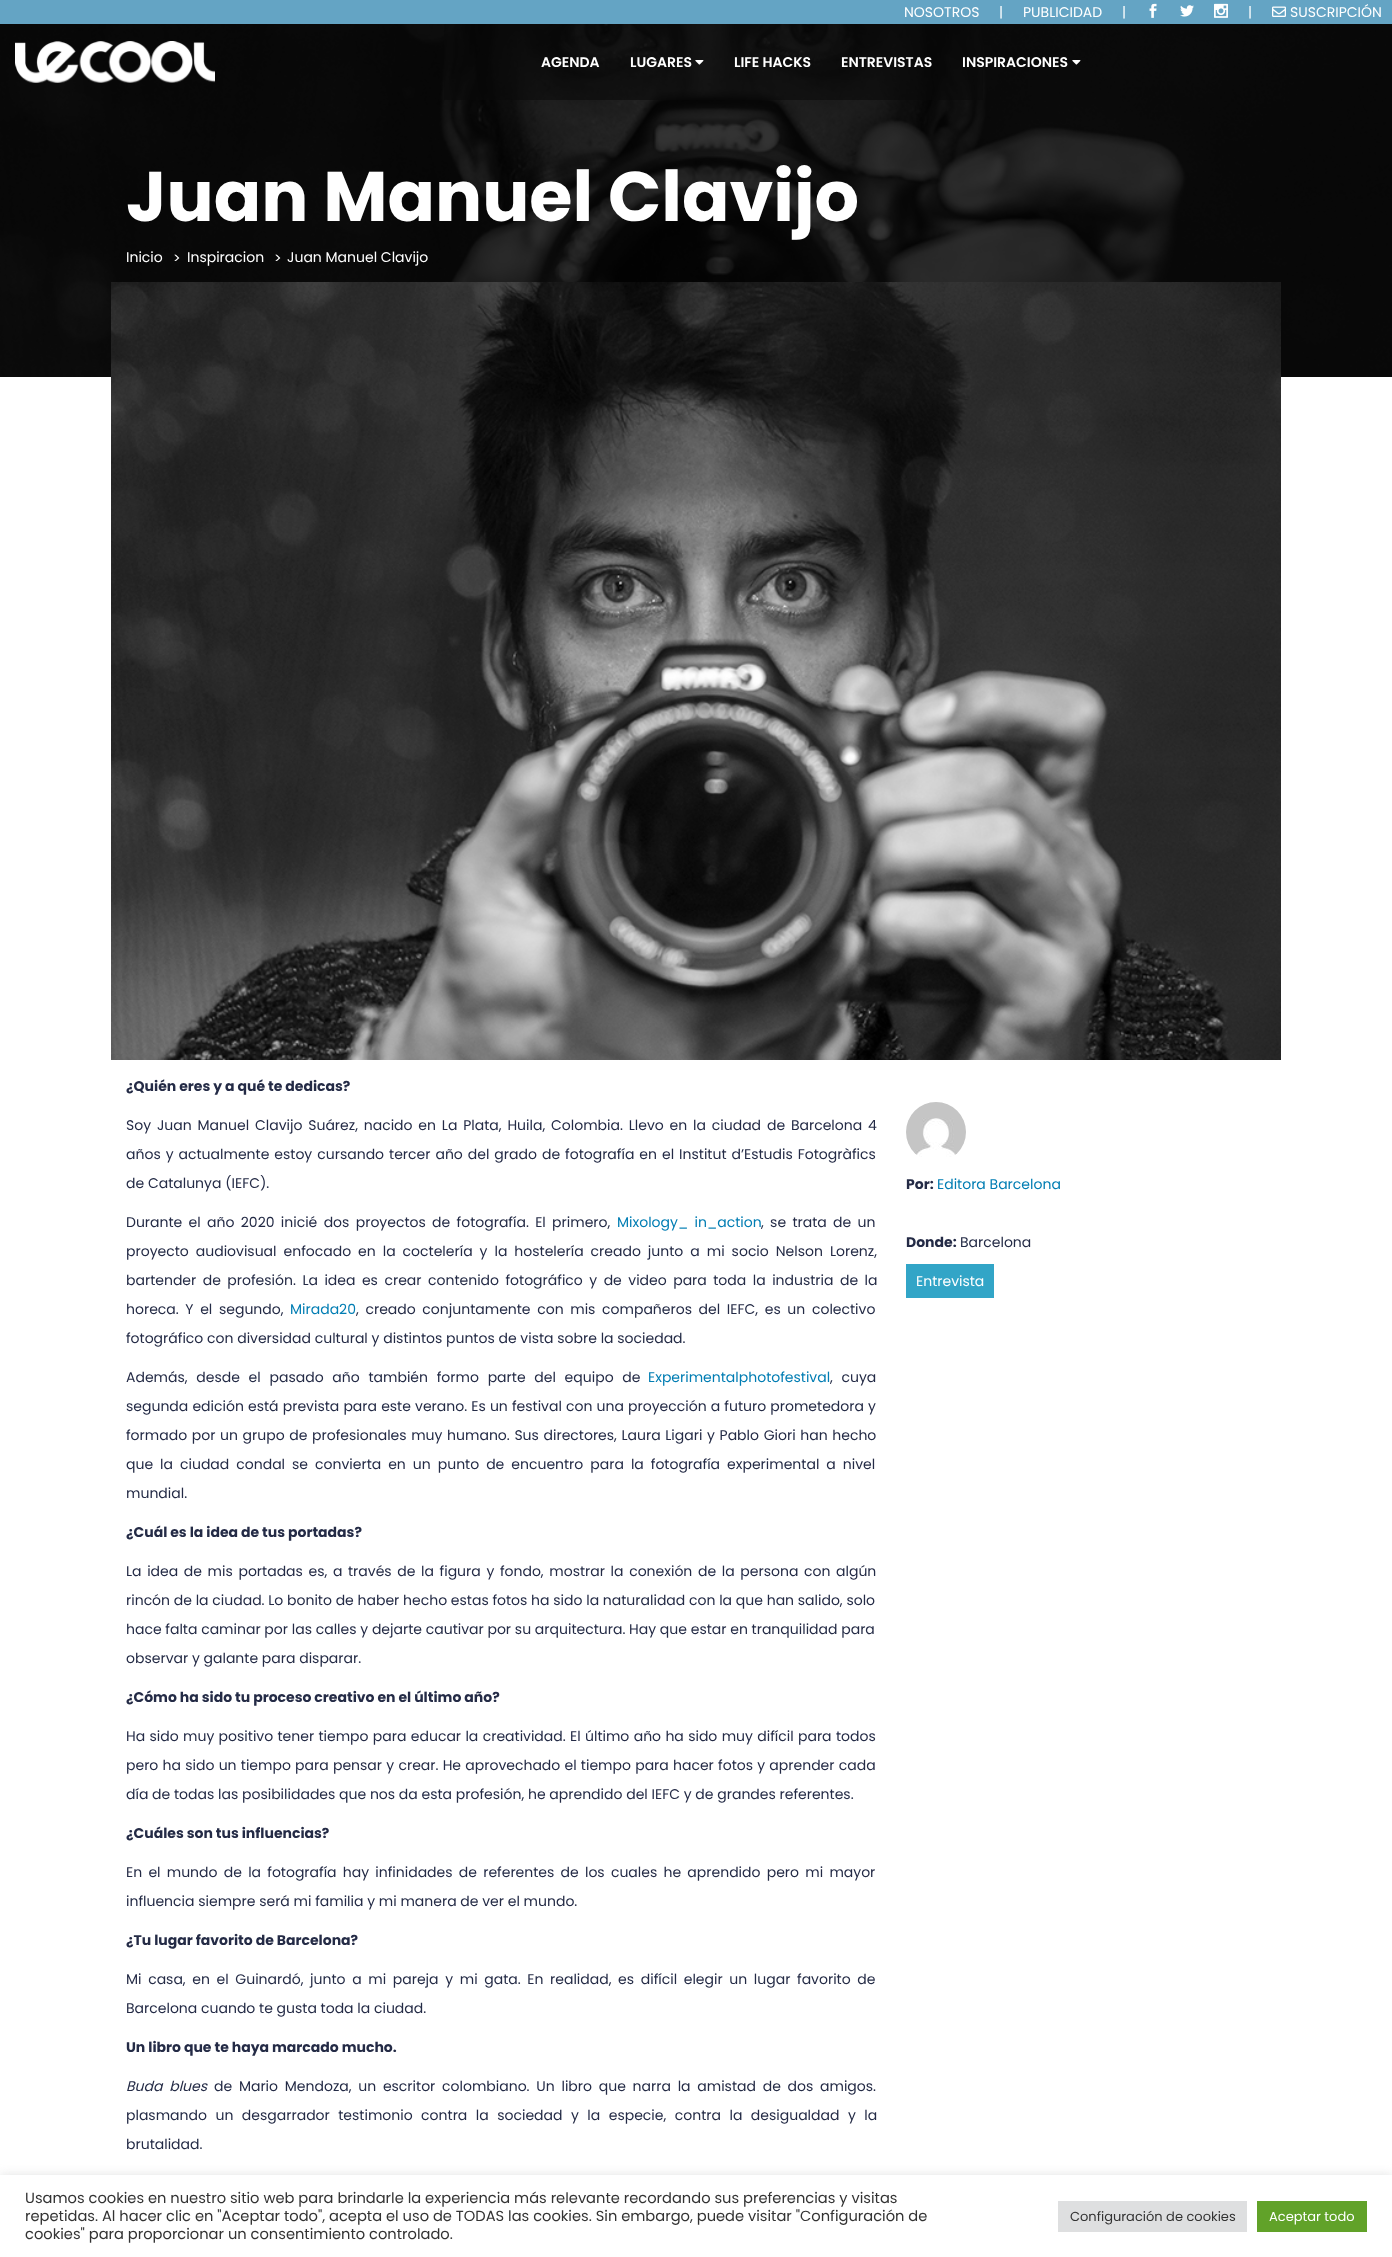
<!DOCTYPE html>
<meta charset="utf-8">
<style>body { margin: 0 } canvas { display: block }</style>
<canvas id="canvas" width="1392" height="2257"></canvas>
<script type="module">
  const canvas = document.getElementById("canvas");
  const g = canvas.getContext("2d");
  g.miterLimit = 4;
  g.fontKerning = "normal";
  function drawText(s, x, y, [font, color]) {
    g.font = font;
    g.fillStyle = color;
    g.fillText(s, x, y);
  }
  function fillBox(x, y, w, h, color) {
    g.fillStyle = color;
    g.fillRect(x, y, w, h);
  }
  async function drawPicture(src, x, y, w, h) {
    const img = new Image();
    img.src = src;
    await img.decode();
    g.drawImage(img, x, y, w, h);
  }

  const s1 = ["14px Poppins", "#FFFFFF"];
  const s2 = ["600 14px Poppins", "#FFFFFF"];
  const s3 = ["bold 70px Poppins", "#FFFFFF"];
  const s4 = ["bold 14px Poppins", "#242B46"];
  const s5 = ["14px Poppins", "#242B46"];
  const s6 = ["14px Poppins", "#017DB3"];
  const s7 = ["italic 14px Poppins", "#242B46"];
  const s8 = ["14.67px Poppins", "#333333"];
  const s9 = ["13px Poppins", "#333333"];
  const s10 = ["13px Poppins", "#FFFFFF"];

  fillBox(0, 0, 1392, 2257, "#FFFFFF");
  fillBox(0, 0, 1392, 24, "#64A4C4");
  drawText("NOSOTROS", 904, 17, s1);
  drawText("|", 999, 17, s1);
  drawText("PUBLICIDAD", 1023, 17, s1);
  drawText("|", 1122, 17, s1);
  await drawPicture("pic1.png", 1149, 3, 8, 15);
  await drawPicture("pic2.png", 1180, 5, 14, 12);
  await drawPicture("pic3.png", 1214, 3, 14, 15);
  drawText("|", 1248, 17, s1);
  await drawPicture("pic4.png", 1272, 6, 14, 11);
  drawText("SUSCRIPCIÓN", 1290, 17, s1);
  await drawPicture("pic8.png", 0, 24, 1392, 353);
  fillBox(444, 24, 539, 76, "rgba(10, 10, 10, 0.6)");
  await drawPicture("pic5.png", 15, 41, 200, 42);
  drawText("AGENDA", 541, 67, s2);
  drawText("LUGARES", 630, 67, s2);
  await drawPicture("pic6.png", 695, 60, 9, 5);
  drawText("LIFE HACKS", 734, 67, s2);
  drawText("ENTREVISTAS", 841, 67, s2);
  drawText("INSPIRACIONES", 962, 67, s2);
  await drawPicture("pic7.png", 1072, 60, 9, 5);
  drawText("Juan Manuel Clavijo", 126, 221, s3);
  drawText("Inicio", 126, 262, s1);
  drawText(">", 173, 263, s1);
  drawText("Inspiracion", 187, 262, s1);
  drawText(">", 274, 263, s1);
  drawText("Juan Manuel Clavijo", 287, 262, s1);
  await drawPicture("pic9.png", 111, 282, 1170, 778);
  drawText("¿Quién eres y a qué te dedicas?", 126, 1091, s4);
  g.wordSpacing = "2.1px";
  drawText("Soy Juan Manuel Clavijo Suárez, nacido en La Plata, Huila, Colombia. Llevo en la ciudad de Barcelona 4", 126, 1130, s5);
  g.wordSpacing = "1.25px";
  drawText("años y actualmente estoy cursando tercer año del grado de fotografía en el Institut d’Estudis Fotogràfics", 126, 1159, s5);
  g.wordSpacing = "0px";
  drawText("de Catalunya (IEFC).", 126, 1188, s5);
  g.wordSpacing = "2.6px";
  drawText("Durante el año 2020 inicié dos proyectos de fotografía. El primero,", 126, 1227, s5);
  drawText("Mixology_ in_action", 617, 1227, s6);
  drawText(", se trata de un", 761, 1227, s5);
  g.wordSpacing = "3.25px";
  drawText("proyecto audiovisual enfocado en la coctelería y la hostelería creado junto a mi socio Nelson Lorenz,", 126, 1256, s5);
  g.wordSpacing = "2.75px";
  drawText("bartender de profesión. La idea es crear contenido fotográfico y de video para toda la industria de la", 126, 1285, s5);
  g.wordSpacing = "2.9px";
  drawText("horeca. Y el segundo,", 126, 1314, s5);
  g.wordSpacing = "0px";
  drawText("Mirada20", 290, 1314, s6);
  g.wordSpacing = "2.9px";
  drawText(", creado conjuntamente con mis compañeros del IEFC, es un colectivo", 356, 1314, s5);
  g.wordSpacing = "0px";
  drawText("fotográfico con diversidad cultural y distintos puntos de vista sobre la sociedad.", 126, 1343, s5);
  g.wordSpacing = "5px";
  drawText("Además, desde el pasado año también formo parte del equipo de", 126, 1382, s5);
  g.wordSpacing = "0px";
  drawText("Experimentalphotofestival", 648, 1382, s6);
  g.wordSpacing = "5px";
  drawText(", cuya", 830, 1382, s5);
  g.wordSpacing = "0.4px";
  drawText("segunda edición está prevista para este verano. Es un festival con una proyección a futuro prometedora y", 126, 1411, s5);
  g.wordSpacing = "0.9px";
  drawText("formado por un grupo de profesionales muy humano. Sus directores, Laura Ligari y Pablo Giori han hecho", 126, 1440, s5);
  g.wordSpacing = "3.25px";
  drawText("que la ciudad condal se convierta en un punto de encuentro para la fotografía experimental a nivel", 126, 1469, s5);
  g.wordSpacing = "0px";
  drawText("mundial.", 126, 1498, s5);
  drawText("¿Cuál es la idea de tus portadas?", 126, 1537, s4);
  g.wordSpacing = "1.9px";
  drawText("La idea de mis portadas es, a través de la figura y fondo, mostrar la conexión de la persona con algún", 126, 1576, s5);
  g.wordSpacing = "0px";
  drawText("rincón de la ciudad. Lo bonito de haber hecho estas fotos ha sido la naturalidad con la que han salido, solo", 126, 1605, s5);
  drawText("hace falta caminar por las calles y dejarte cautivar por su arquitectura. Hay que estar en tranquilidad para", 126, 1634, s5);
  drawText("observar y galante para disparar.", 126, 1663, s5);
  drawText("¿Cómo ha sido tu proceso creativo en el último año?", 126, 1702, s4);
  g.wordSpacing = "0.6px";
  drawText("Ha sido muy positivo tener tiempo para educar la creatividad. El último año ha sido muy difícil para todos", 126, 1741, s5);
  g.wordSpacing = "0.5px";
  drawText("pero ha sido un tiempo para pensar y crear. He aprovechado el tiempo para hacer fotos y aprender cada", 126, 1770, s5);
  g.wordSpacing = "0px";
  drawText("día de todas las posibilidades que nos da esta profesión, he aprendido del IEFC y de grandes referentes.", 126, 1799, s5);
  drawText("¿Cuáles son tus influencias?", 126, 1838, s4);
  g.wordSpacing = "2.5px";
  drawText("En el mundo de la fotografía hay infinidades de referentes de los cuales he aprendido pero mi mayor", 126, 1877, s5);
  g.wordSpacing = "0px";
  drawText("influencia siempre será mi familia y mi manera de ver el mundo.", 126, 1906, s5);
  drawText("¿Tu lugar favorito de Barcelona?", 126, 1945, s4);
  g.wordSpacing = "2.9px";
  drawText("Mi casa, en el Guinardó, junto a mi pareja y mi gata. En realidad, es difícil elegir un lugar favorito de", 126, 1984, s5);
  g.wordSpacing = "0px";
  drawText("Barcelona cuando te gusta toda la ciudad.", 126, 2013, s5);
  drawText("Un libro que te haya marcado mucho.", 126, 2052, s4);
  g.wordSpacing = "3px";
  drawText("Buda blues", 126, 2091, s7);
  drawText("de Mario Mendoza, un escritor colombiano. Un libro que narra la amistad de dos amigos.", 214, 2091, s5);
  g.wordSpacing = "4.75px";
  drawText("plasmando un desgarrador testimonio contra la sociedad y la especie, contra la desigualdad y la", 126, 2120, s5);
  g.wordSpacing = "0px";
  drawText("brutalidad.", 126, 2149, s5);
  await drawPicture("pic10.png", 906, 1102, 60, 55);
  drawText("Por:", 906, 1189, s4);
  drawText("Editora Barcelona", 937, 1189, s6);
  drawText("Donde:", 906, 1247, s4);
  drawText("Barcelona", 960, 1247, s5);
  fillBox(906, 1264, 88, 34, "#32A5C7");
  drawText("Entrevista", 916, 1286, s1);
  g.fillStyle = "rgba(172, 171, 171, 0.3)";
  g.filter = "blur(5px)";
  g.beginPath();
  g.rect(0, 2174, 1392, 82);
  g.fill();
  g.filter = "none";
  fillBox(0, 2175, 1392, 82, "#FFFFFF");
  drawText("Usamos cookies en nuestro sitio web para brindarle la experiencia más relevante recordando sus preferencias y visitas", 25, 2203, s8);
  drawText("repetidas. Al hacer clic en \"Aceptar todo\", acepta el uso de TODAS las cookies. Sin embargo, puede visitar \"Configuración de", 25, 2221, s8);
  drawText("cookies\" para proporcionar un consentimiento controlado.", 25, 2239, s8);
  fillBox(1058, 2201, 189, 31, "#DEDFE0");
  drawText("Configuración de cookies", 1070, 2221, s9);
  fillBox(1257, 2201, 110, 31, "#61A229");
  drawText("Aceptar todo", 1269, 2221, s10);
</script>
